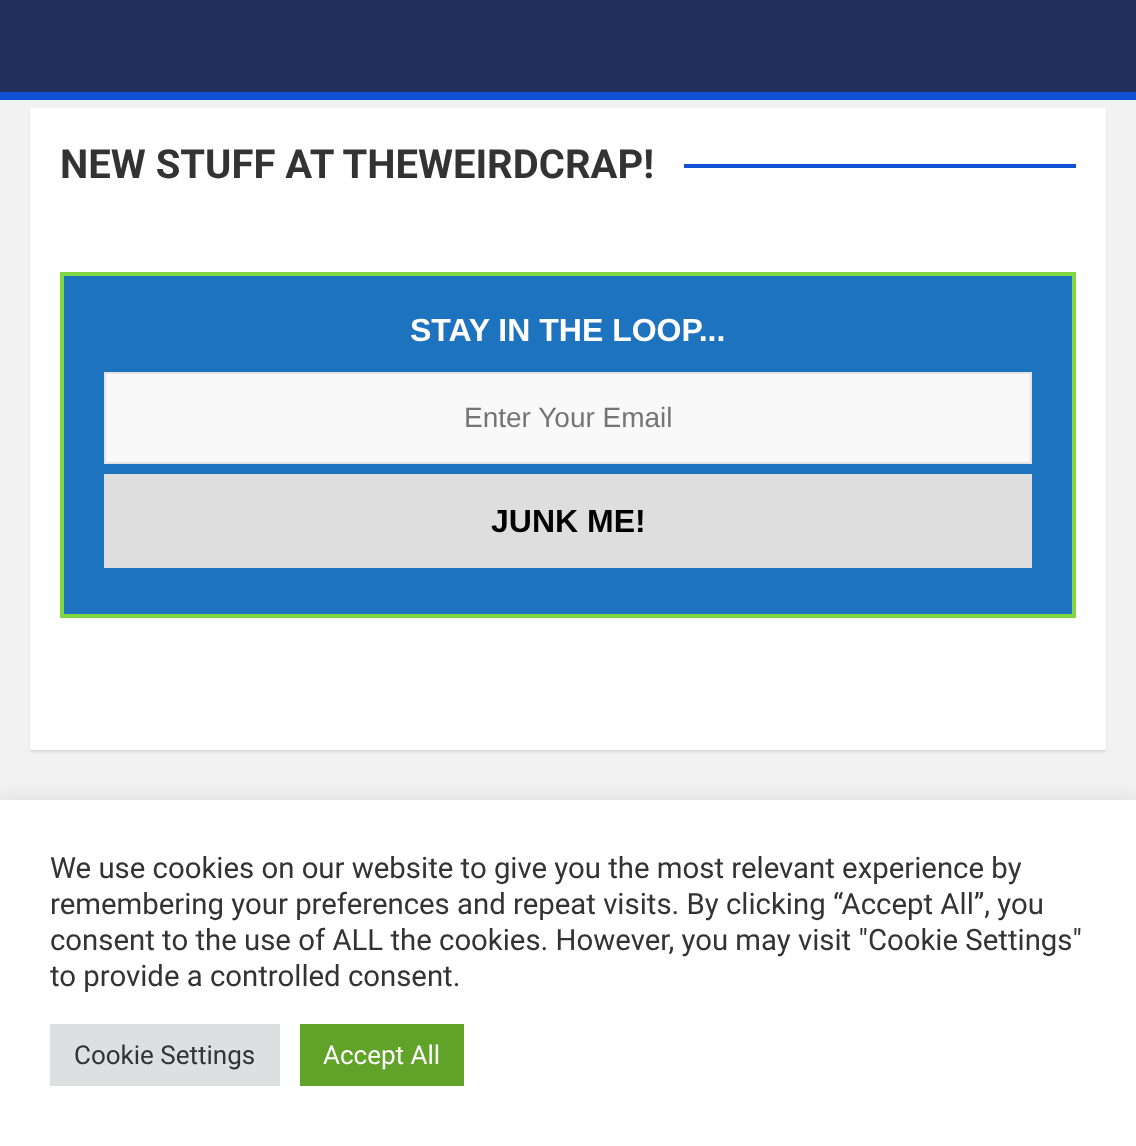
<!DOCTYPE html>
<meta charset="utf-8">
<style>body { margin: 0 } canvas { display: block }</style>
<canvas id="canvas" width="1136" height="1146"></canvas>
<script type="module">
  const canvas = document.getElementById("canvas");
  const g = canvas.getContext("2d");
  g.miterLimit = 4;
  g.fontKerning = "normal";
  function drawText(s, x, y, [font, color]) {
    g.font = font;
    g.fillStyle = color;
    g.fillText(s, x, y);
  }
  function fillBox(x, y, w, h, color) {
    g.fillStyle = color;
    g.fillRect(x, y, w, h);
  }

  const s1 = ["bold 40px Roboto", "#333333"];
  const s2 = ["bold 32px Liberation Sans", "#FFFFFF"];
  const s3 = ["28px Liberation Sans", "#757575"];
  const s4 = ["bold 32px Liberation Sans", "#000000"];
  const s5 = ["29.35px Roboto", "#333333"];
  const s6 = ["26px Roboto", "#333333"];
  const s7 = ["26px Roboto", "#FFFFFF"];

  fillBox(0, 0, 1136, 1146, "#F2F2F2");
  fillBox(0, 0, 1136, 92, "#202F5B");
  fillBox(0, 92, 1136, 8, "#1151D3");
  g.fillStyle = "rgba(0, 0, 0, 0.1)";
  g.filter = "blur(1px)";
  g.beginPath();
  g.rect(30, 110, 1076, 642);
  g.fill();
  g.filter = "none";
  fillBox(30, 108, 1076, 642, "#FFFFFF");
  drawText("NEW STUFF AT THEWEIRDCRAP!", 60, 178, s1);
  fillBox(684, 164, 392, 4, "#1151D3");
  g.fillStyle = "#1E73BE";
  g.beginPath();
  g.rect(62, 274, 1012, 342);
  g.fill();
  g.strokeStyle = "#81D742";
  g.lineWidth = 4;
  g.stroke();
  drawText("STAY IN THE LOOP...", 410, 341, s2);
  g.fillStyle = "#F9F9F9";
  g.beginPath();
  g.rect(105, 373, 926, 90);
  g.fill();
  g.strokeStyle = "#E3E3E3";
  g.lineWidth = 2;
  g.stroke();
  drawText("Enter Your Email", 464, 427, s3);
  fillBox(104, 474, 928, 94, "#DEDEDE");
  drawText("JUNK ME!", 491, 532, s4);
  g.fillStyle = "rgba(172, 171, 171, 0.3)";
  g.filter = "blur(10px)";
  g.beginPath();
  g.rect(0, 798, 1136, 346);
  g.fill();
  g.filter = "none";
  fillBox(0, 800, 1136, 346, "#FFFFFF");
  drawText("We use cookies on our website to give you the most relevant experience by", 50, 878, s5);
  drawText("remembering your preferences and repeat visits. By clicking “Accept All”, you", 50, 914, s5);
  drawText("consent to the use of ALL the cookies. However, you may visit \"Cookie Settings\"", 50, 950, s5);
  drawText("to provide a controlled consent.", 50, 986, s5);
  fillBox(50, 1024, 230, 62, "#DEDFE0");
  drawText("Cookie Settings", 74, 1064, s6);
  fillBox(300, 1024, 164, 62, "#61A229");
  drawText("Accept All", 323, 1064, s7);
</script>
